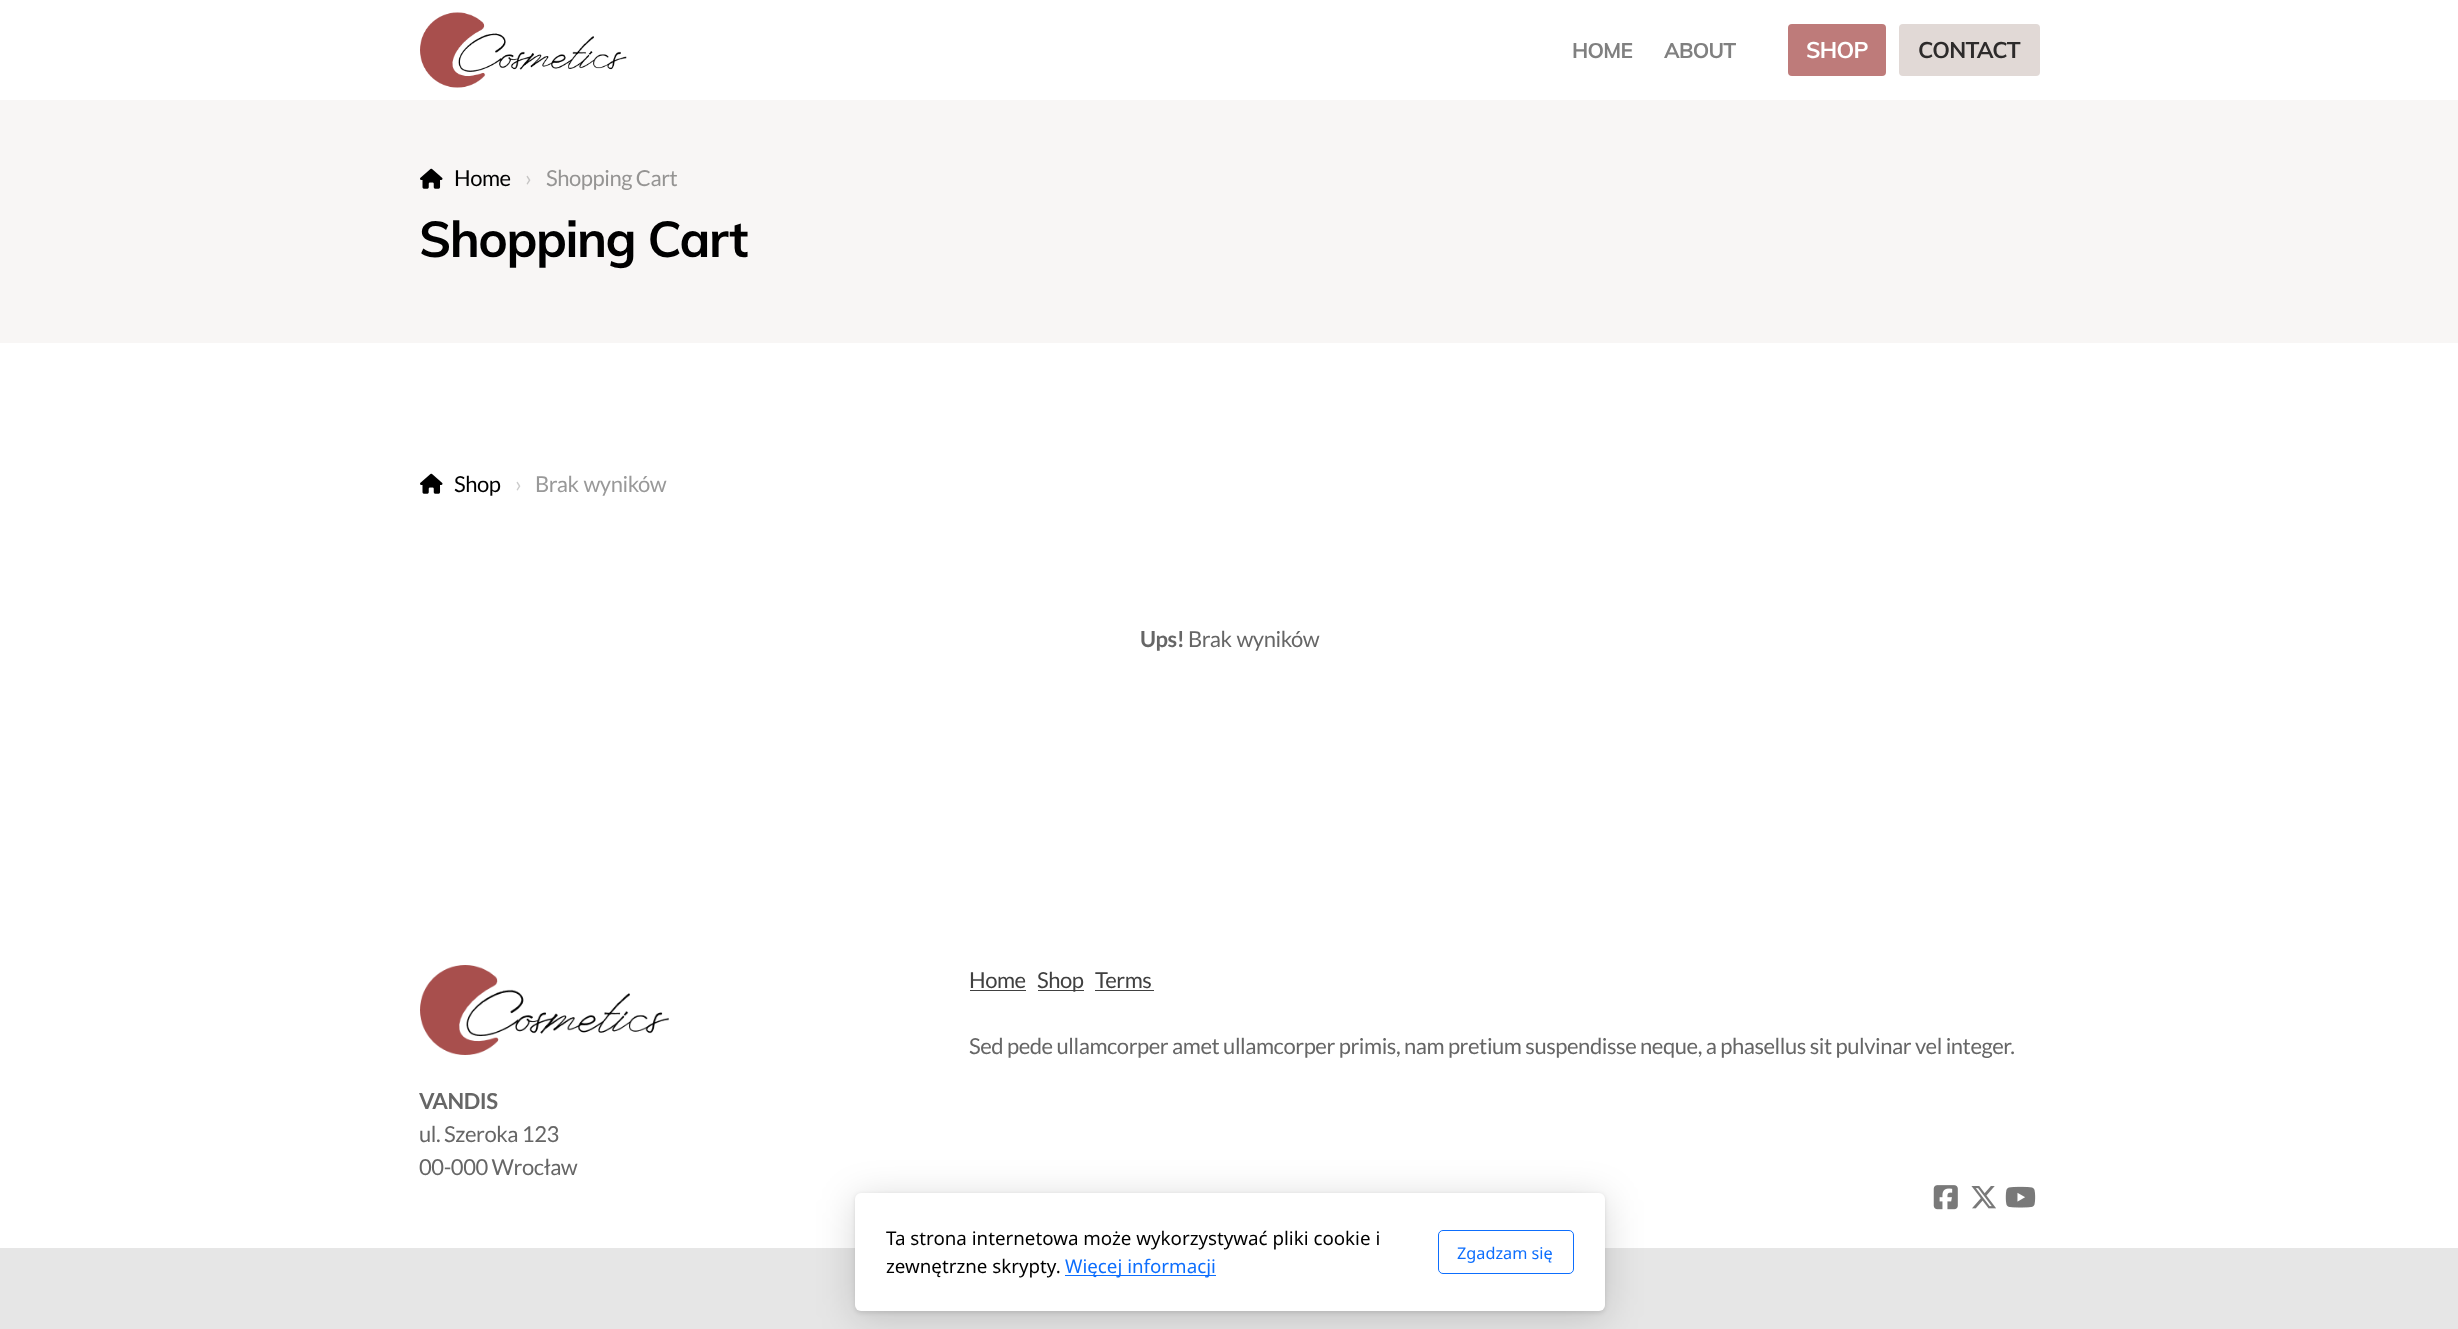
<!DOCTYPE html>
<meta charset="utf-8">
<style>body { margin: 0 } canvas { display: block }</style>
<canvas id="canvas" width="2458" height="1329"></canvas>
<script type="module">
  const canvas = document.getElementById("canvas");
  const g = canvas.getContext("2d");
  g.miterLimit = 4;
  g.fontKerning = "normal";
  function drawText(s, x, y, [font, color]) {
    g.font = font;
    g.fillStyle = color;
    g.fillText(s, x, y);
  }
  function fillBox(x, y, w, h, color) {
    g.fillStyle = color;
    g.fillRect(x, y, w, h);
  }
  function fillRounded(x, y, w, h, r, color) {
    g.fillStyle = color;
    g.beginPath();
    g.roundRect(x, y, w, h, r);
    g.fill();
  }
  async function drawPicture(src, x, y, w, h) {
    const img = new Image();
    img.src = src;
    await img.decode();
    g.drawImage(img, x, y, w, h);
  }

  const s1 = ["bold 21px Muli", "#808080"];
  const s2 = ["bold 22.5px Muli", "#FFFFFF"];
  const s3 = ["bold 22.5px Muli", "#2D2B2B"];
  const s4 = ["22px Lato", "#000000"];
  const s5 = ["22px Lato", "#C6C5C4"];
  const s6 = ["22px Lato", "#959493"];
  const s7 = ["bold 50px Muli", "#000000"];
  const s8 = ["22px Lato", "#CCCCCC"];
  const s9 = ["22px Lato", "#999999"];
  const s10 = ["bold 22px Lato", "#666666"];
  const s11 = ["22px Lato", "#666666"];
  const s12 = ["22px Lato", "#404040"];
  const s13 = ["18.75px Noto Sans", "#000000"];
  const s14 = ["18.75px Noto Sans", "#0D6EFD"];
  const s15 = ["16.25px Noto Sans", "#0D6EFD"];

  fillBox(0, 0, 2458, 1329, "#FFFFFF");
  await drawPicture("pic1.png", 420, 12, 207, 76);
  g.letterSpacing = "-0.75px";
  drawText("HOME", 1572, 58, s1);
  drawText("ABOUT", 1664, 58, s1);
  fillRounded(1788, 24, 98, 52, 4, "#BE7B7A");
  drawText("SHOP", 1806, 58, s2);
  fillRounded(1899, 24, 141, 52, 4, "#E1D9D6");
  drawText("CONTACT", 1918, 58, s3);
  fillBox(0, 100, 2458, 243, "#F8F6F5");
  await drawPicture("pic2.png", 420, 168, 23, 21);
  g.letterSpacing = "-0.44px";
  drawText("Home", 454, 186, s4);
  drawText("›", 525, 186, s5);
  drawText("Shopping Cart", 546, 186, s6);
  g.letterSpacing = "-1.5px";
  drawText("Shopping Cart", 419, 257, s7);
  await drawPicture("pic3.png", 420, 473, 23, 21);
  g.letterSpacing = "-0.44px";
  drawText("Shop", 454, 492, s4);
  drawText("›", 515, 492, s8);
  g.wordSpacing = "1px";
  drawText("Brak wyników", 535, 492, s9);
  g.wordSpacing = "0px";
  drawText("Ups!", 1140, 647, s10);
  g.wordSpacing = "1px";
  drawText("Brak wyników", 1188, 647, s11);
  g.wordSpacing = "0px";
  drawText("Home", 969, 988, s12);
  fillBox(970, 990, 56, 1, "#404040");
  fillBox(1038, 990, 46, 1, "#404040");
  drawText("Shop", 1037, 988, s12);
  drawText("Terms", 1095, 988, s12);
  fillBox(1095, 990, 59, 1, "#404040");
  drawText("Sed pede ullamcorper amet ullamcorper primis, nam pretium suspendisse neque, a phasellus sit pulvinar vel integer.", 969, 1054, s11);
  await drawPicture("pic4.png", 1933, 1185, 25, 25);
  await drawPicture("pic5.png", 1971, 1186, 25, 23);
  await drawPicture("pic6.png", 2005, 1186, 31, 22);
  await drawPicture("pic7.png", 420, 965, 249, 90);
  drawText("VANDIS", 419, 1109, s10);
  drawText("ul. Szeroka 123", 419, 1142, s11);
  drawText("00-000 Wrocław", 419, 1175, s11);
  fillBox(0, 1248, 2458, 81, "#E6E6E6");
  g.fillStyle = "rgba(0, 0, 0, 0.16)";
  g.filter = "blur(19px)";
  g.beginPath();
  g.roundRect(855, 1199, 750, 119, 6);
  g.fill();
  g.filter = "none";
  g.fillStyle = "rgba(0, 0, 0, 0.1)";
  g.filter = "blur(2px)";
  g.beginPath();
  g.roundRect(855, 1194, 750, 119, 6);
  g.fill();
  g.filter = "none";
  fillRounded(855, 1193, 750, 118, 6, "#FFFFFF");
  g.letterSpacing = "0px";
  drawText("Ta strona internetowa może wykorzystywać pliki cookie i", 886, 1245, s13);
  drawText("zewnętrzne skrypty.", 886, 1273, s13);
  fillBox(1065, 1275, 151, 1, "#0D6EFD");
  drawText("Więcej informacji", 1065, 1273, s14);
  g.beginPath();
  g.roundRect(1438.5, 1230.5, 135, 43, 4.5);
  g.strokeStyle = "#0D6EFD";
  g.stroke();
  drawText("Zgadzam się", 1457, 1259, s15);
</script>
